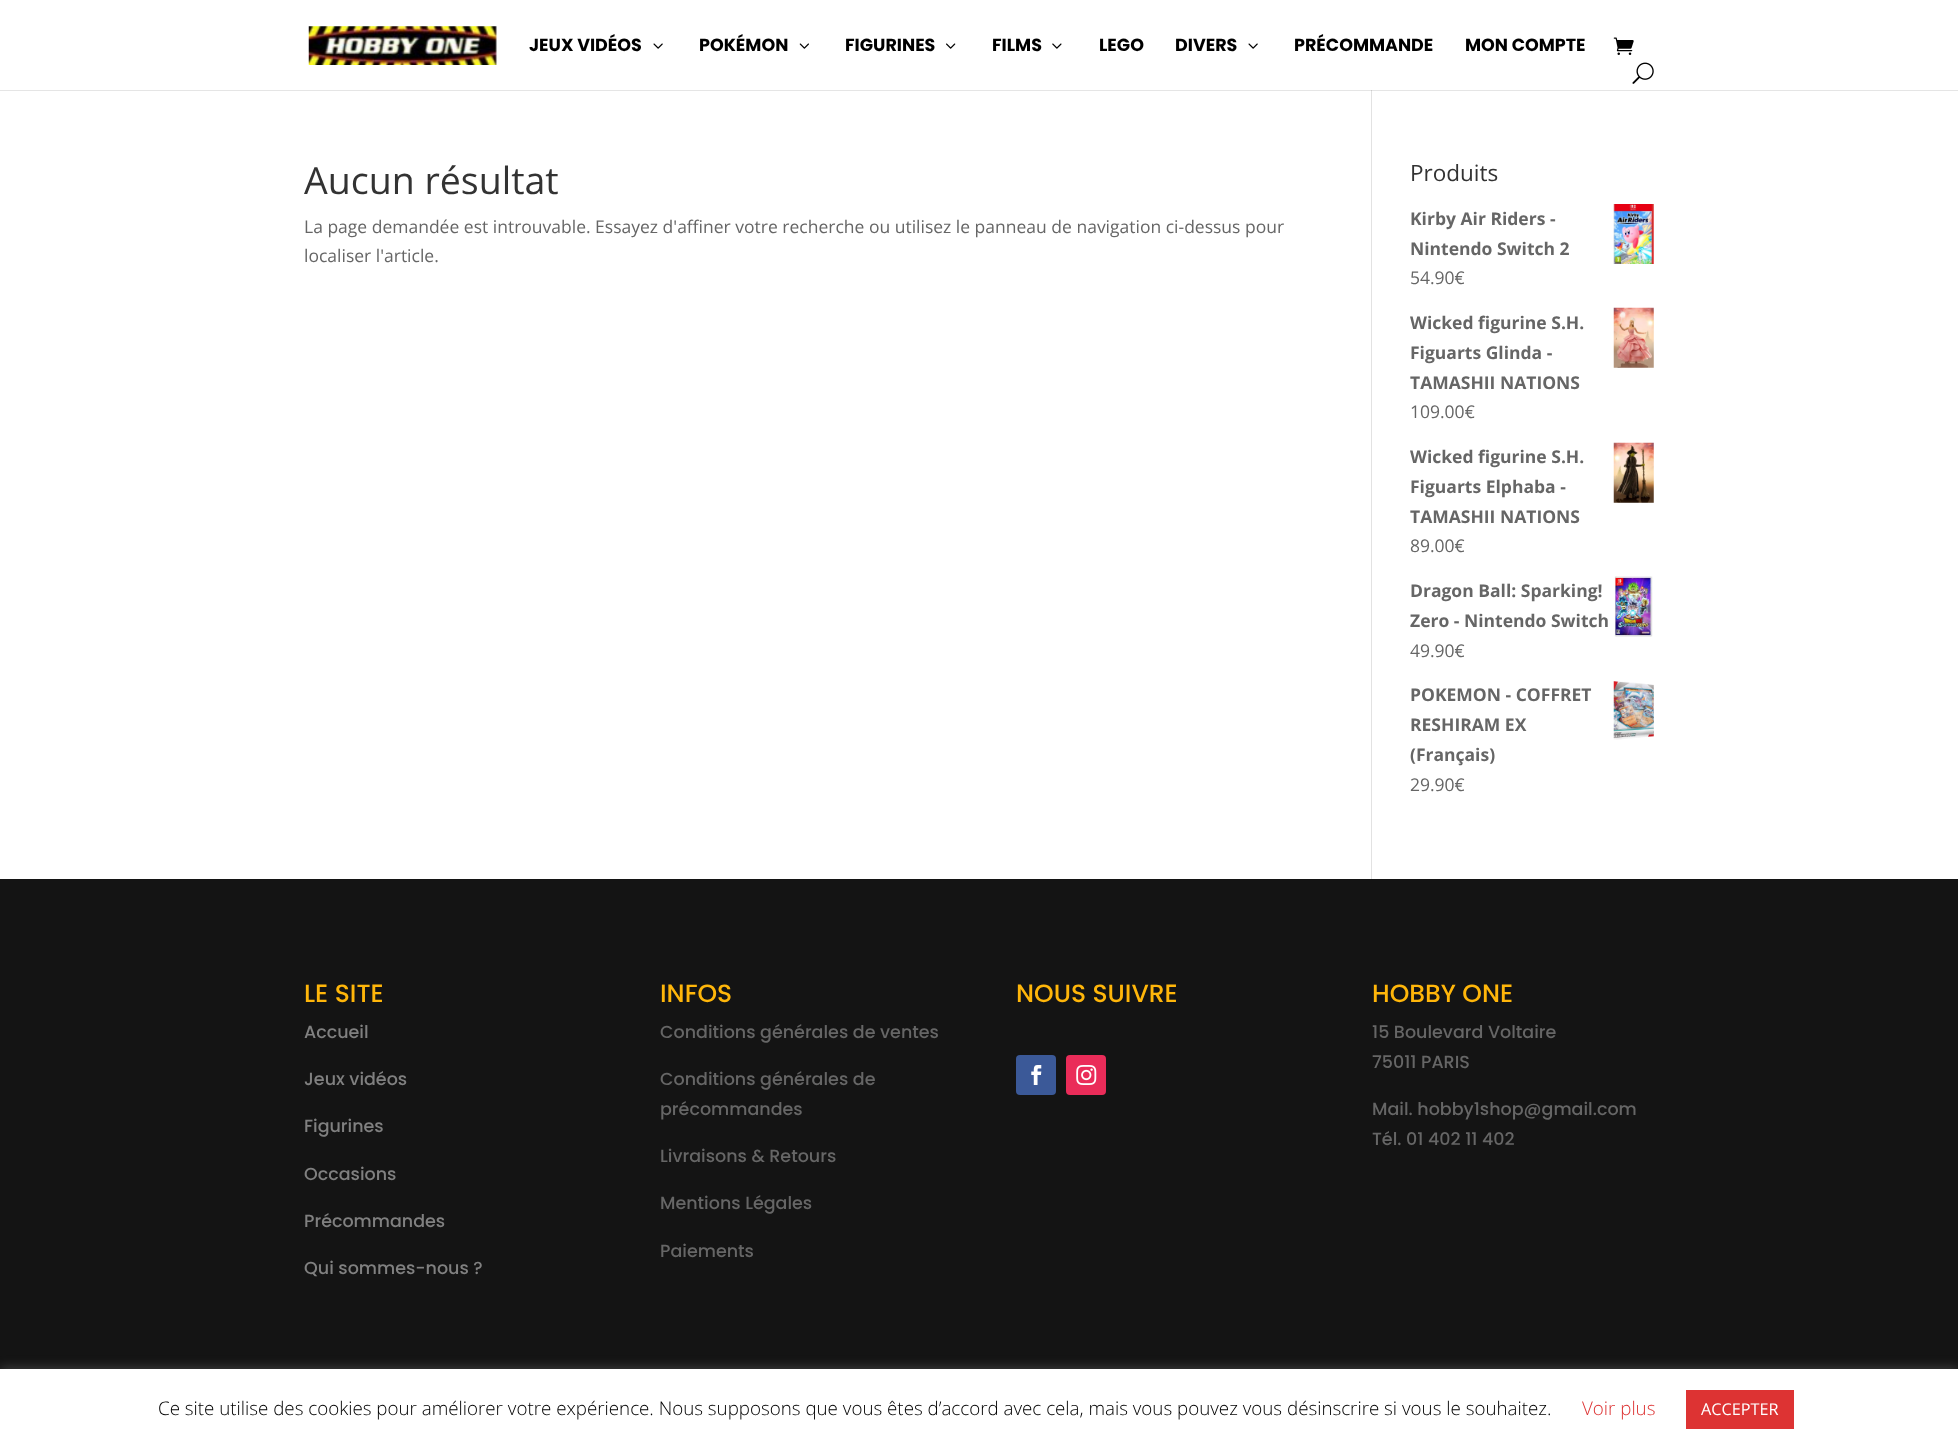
<!DOCTYPE html>
<meta charset="utf-8">
<style>body { margin: 0 } canvas { display: block }</style>
<canvas id="canvas" width="1958" height="1450"></canvas>
<script type="module">
  const canvas = document.getElementById("canvas");
  const g = canvas.getContext("2d");
  g.miterLimit = 4;
  g.fontKerning = "normal";
  function drawText(s, x, y, [font, color]) {
    g.font = font;
    g.fillStyle = color;
    g.fillText(s, x, y);
  }
  function fillBox(x, y, w, h, color) {
    g.fillStyle = color;
    g.fillRect(x, y, w, h);
  }
  function fillRounded(x, y, w, h, r, color) {
    g.fillStyle = color;
    g.beginPath();
    g.roundRect(x, y, w, h, r);
    g.fill();
  }
  async function drawPicture(src, x, y, w, h) {
    const img = new Image();
    img.src = src;
    await img.decode();
    g.drawImage(img, x, y, w, h);
  }

  const s1 = ["bold 17.5px Poppins", "#000000"];
  const s2 = ["37.5px Open Sans", "#333333"];
  const s3 = ["17.5px Open Sans", "#666666"];
  const s4 = ["22.5px Open Sans", "#333333"];
  const s5 = ["bold 17.5px Open Sans", "#666666"];
  const s6 = ["500 25px Poppins", "#FFB60A"];
  const s7 = ["500 17.5px Poppins", "#808080"];
  const s8 = ["500 17.5px Poppins", "#666666"];
  const s9 = ["300 18.75px Open Sans", "#000000"];
  const s10 = ["300 18.75px Open Sans", "#DD3333"];
  const s11 = ["16.25px Open Sans", "#FFFFFF"];

  fillBox(0, 0, 1958, 1450, "#FFFFFF");
  fillBox(1371, 89, 1, 790, "#E2E2E2");
  g.fillStyle = "rgba(0, 0, 0, 0.1)";
  g.beginPath();
  g.moveTo(0, 90);
  g.lineTo(0, 91);
  g.lineTo(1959, 91);
  g.lineTo(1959, 1);
  g.lineTo(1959, 90);
  g.closePath();
  g.fill();
  fillBox(1371, 89, 1, 1, "#FFFFFF");
  await drawPicture("pic1.png", 308, 26, 189, 39);
  drawText("JEUX VIDÉOS", 529, 51, s1);
  await drawPicture("pic2.png", 653, 43, 10, 6);
  drawText("POKÉMON", 699, 51, s1);
  await drawPicture("pic3.png", 799, 43, 10, 6);
  drawText("FIGURINES", 845, 51, s1);
  await drawPicture("pic4.png", 946, 43, 10, 6);
  drawText("FILMS", 992, 51, s1);
  await drawPicture("pic5.png", 1052, 43, 10, 6);
  drawText("LEGO", 1099, 51, s1);
  drawText("DIVERS", 1175, 51, s1);
  await drawPicture("pic2.png", 1248, 43, 10, 6);
  drawText("PRÉCOMMANDE", 1294, 51, s1);
  drawText("MON COMPTE", 1465, 51, s1);
  await drawPicture("pic6.png", 1613, 37, 21, 18);
  await drawPicture("pic7.png", 1632, 62, 22, 22);
  drawText("Aucun résultat", 304, 194, s2);
  drawText("La page demandée est introuvable. Essayez d'affiner votre recherche ou utilisez le panneau de navigation ci-dessus pour", 304, 233, s3);
  drawText("localiser l'article.", 304, 262, s3);
  drawText("Produits", 1410, 181, s4);
  drawText("Kirby Air Riders -", 1410, 225, s5);
  await drawPicture("pic8.png", 1613, 204, 41, 60);
  drawText("Nintendo Switch 2", 1410, 255, s5);
  drawText("54.90€", 1410, 284, s3);
  drawText("Wicked figurine S.H.", 1410, 329, s5);
  await drawPicture("pic9.png", 1613, 307, 41, 61);
  drawText("Figuarts Glinda -", 1410, 359, s5);
  drawText("TAMASHII NATIONS", 1410, 389, s5);
  drawText("109.00€", 1410, 418, s3);
  drawText("Wicked figurine S.H.", 1410, 463, s5);
  await drawPicture("pic10.png", 1613, 442, 41, 61);
  drawText("Figuarts Elphaba -", 1410, 493, s5);
  drawText("TAMASHII NATIONS", 1410, 523, s5);
  drawText("89.00€", 1410, 552, s3);
  drawText("Dragon Ball: Sparking!", 1410, 597, s5);
  await drawPicture("pic11.png", 1614, 576, 39, 61);
  drawText("Zero - Nintendo Switch", 1410, 627, s5);
  drawText("49.90€", 1410, 657, s3);
  drawText("POKEMON - COFFRET", 1410, 701, s5);
  await drawPicture("pic12.png", 1613, 681, 41, 59);
  drawText("RESHIRAM EX", 1410, 731, s5);
  drawText("(Français)", 1410, 761, s5);
  drawText("29.90€", 1410, 791, s3);
  fillBox(0, 879, 1958, 490, "#141414");
  drawText("LE SITE", 304, 1002, s6);
  drawText("Accueil", 304, 1038, s7);
  drawText("Jeux vidéos", 304, 1085, s7);
  drawText("Figurines", 304, 1132, s7);
  drawText("Occasions", 304, 1180, s7);
  drawText("Précommandes", 304, 1227, s7);
  drawText("Qui sommes-nous ?", 304, 1274, s7);
  drawText("INFOS", 660, 1002, s6);
  drawText("Conditions générales de ventes", 660, 1038, s8);
  drawText("Conditions générales de", 660, 1085, s8);
  drawText("précommandes", 660, 1115, s8);
  drawText("Livraisons & Retours", 660, 1162, s8);
  drawText("Mentions Légales", 660, 1209, s8);
  drawText("Paiements", 660, 1257, s8);
  drawText("NOUS SUIVRE", 1016, 1002, s6);
  fillRounded(1016, 1055, 40, 40, 4, "#3B5998");
  await drawPicture("pic13.png", 1031, 1065, 11, 20);
  fillRounded(1066, 1055, 40, 40, 4, "#EA2C59");
  await drawPicture("pic14.png", 1076, 1065, 21, 20);
  drawText("HOBBY ONE", 1372, 1002, s6);
  drawText("15 Boulevard Voltaire", 1372, 1038, s8);
  drawText("75011 PARIS", 1372, 1068, s8);
  drawText("Mail. hobby1shop@gmail.com", 1372, 1115, s8);
  drawText("Tél. 01 402 11 402", 1372, 1145, s8);
  g.fillStyle = "rgba(172, 171, 171, 0.3)";
  g.filter = "blur(6px)";
  g.beginPath();
  g.rect(0, 1368, 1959, 81);
  g.fill();
  g.filter = "none";
  fillBox(0, 1369, 1958, 81, "#FFFFFF");
  drawText("Ce site utilise des cookies pour améliorer votre expérience. Nous supposons que vous êtes d’accord avec cela, mais vous pouvez vous désinscrire si vous le souhaitez.", 158, 1415, s9);
  drawText("Voir plus", 1582, 1415, s10);
  fillBox(1686, 1390, 108, 39, "#DD3333");
  drawText("ACCEPTER", 1701, 1415, s11);
</script>
